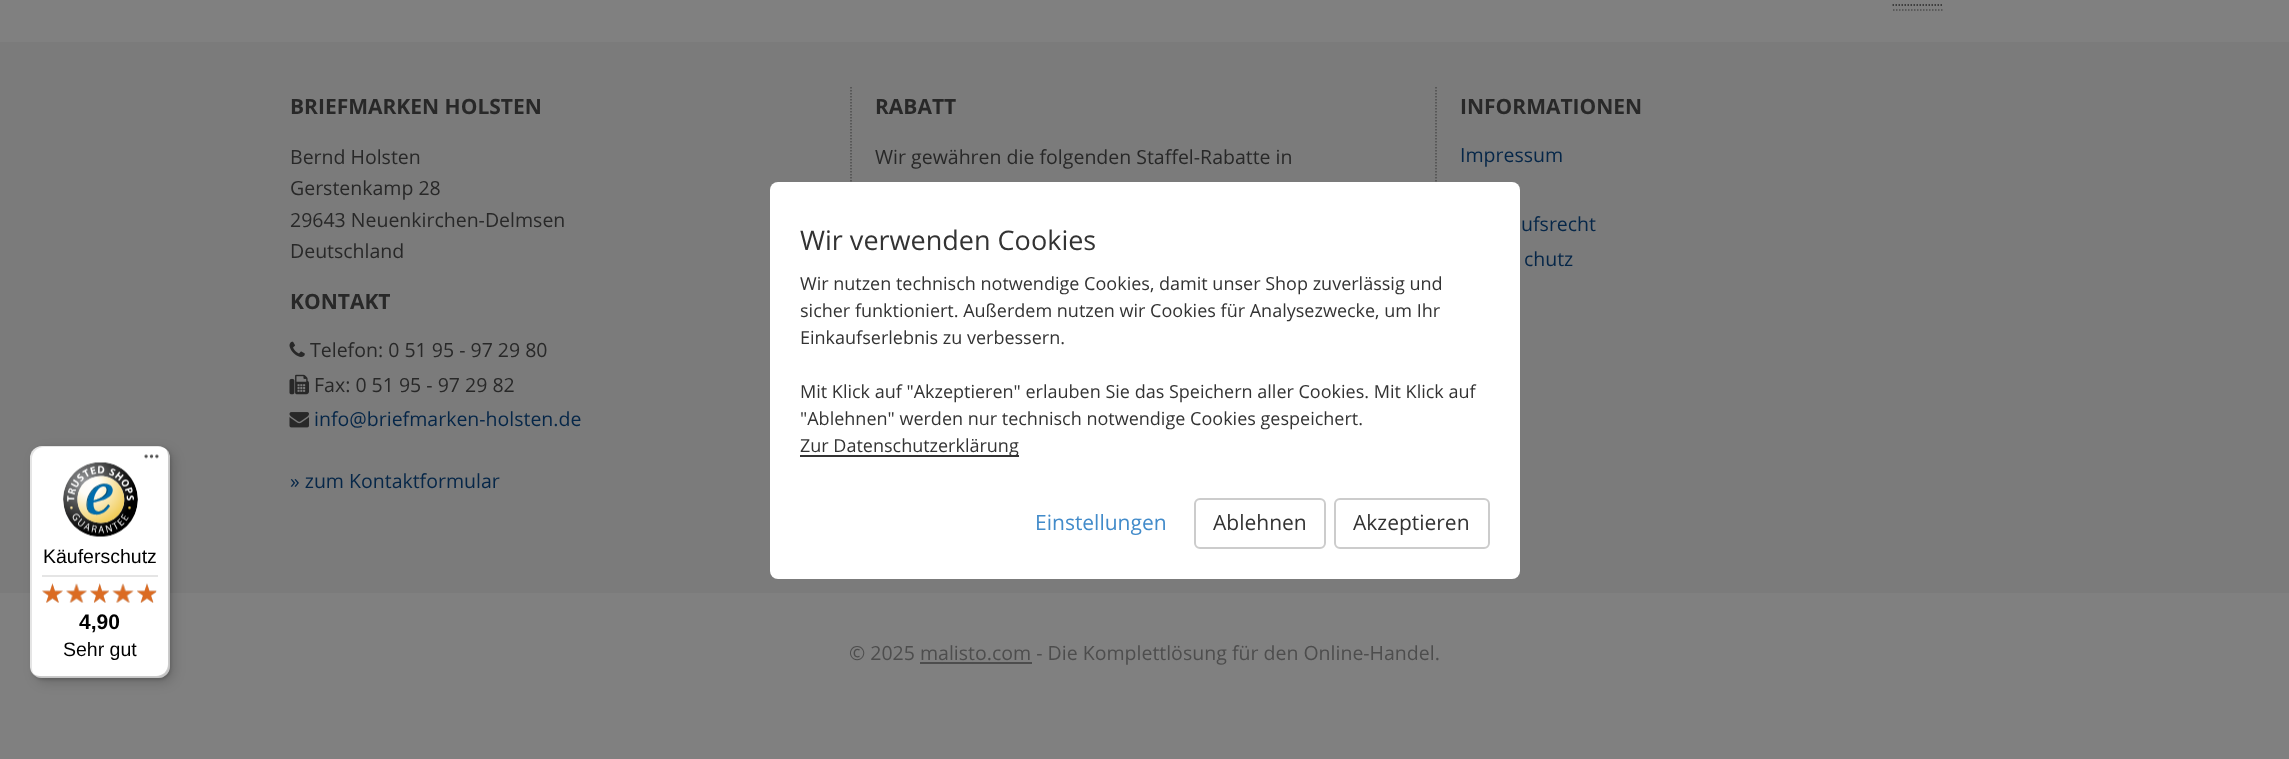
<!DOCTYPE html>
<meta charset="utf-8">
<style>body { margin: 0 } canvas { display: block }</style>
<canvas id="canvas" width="2289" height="759"></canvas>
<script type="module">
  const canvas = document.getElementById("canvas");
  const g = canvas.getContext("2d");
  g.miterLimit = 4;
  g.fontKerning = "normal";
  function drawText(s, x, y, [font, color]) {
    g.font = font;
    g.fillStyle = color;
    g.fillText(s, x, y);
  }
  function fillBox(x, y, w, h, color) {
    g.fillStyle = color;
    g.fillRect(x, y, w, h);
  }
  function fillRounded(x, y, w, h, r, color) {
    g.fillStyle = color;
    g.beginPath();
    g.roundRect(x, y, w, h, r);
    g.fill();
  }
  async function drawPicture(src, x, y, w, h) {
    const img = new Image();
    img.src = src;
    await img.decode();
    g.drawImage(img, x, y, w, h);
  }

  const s1 = ["bold 21px Open Sans", "#282828"];
  const s2 = ["19.5px Open Sans", "#282828"];
  const s3 = ["19.5px Open Sans", "#052648"];
  const s4 = ["27px Open Sans", "#333333"];
  const s5 = ["18px Open Sans", "#333333"];
  const s6 = ["21px Open Sans", "#428BCA"];
  const s7 = ["21px Open Sans", "#333333"];
  const s8 = ["19.5px Liberation Sans", "#000000"];
  const s9 = ["bold 21px Liberation Sans", "#000000"];
  const s10 = ["19.5px Open Sans", "#4D4D4D"];

  fillBox(0, 0, 2289, 759, "#808080");
  g.beginPath();
  g.moveTo(1892.5, 5);
  g.lineTo(1942.5, 5);
  g.strokeStyle = "#282828";
  g.lineWidth = 1.5;
  g.setLineDash([1.5, 1.5]);
  g.stroke();
  g.beginPath();
  g.moveTo(1893, 10);
  g.lineTo(1942.5, 10);
  g.strokeStyle = "#4D4D4D";
  g.stroke();
  fillBox(0, 42, 2289, 551, "#7B7B7B");
  g.beginPath();
  g.moveTo(851, 87);
  g.lineTo(851, 493.5);
  g.stroke();
  drawText("BRIEFMARKEN HOLSTEN", 290, 114, s1);
  drawText("Bernd Holsten", 290, 164, s2);
  drawText("Gerstenkamp 28", 290, 195, s2);
  drawText("29643 Neuenkirchen-Delmsen", 290, 227, s2);
  drawText("Deutschland", 290, 258, s2);
  drawText("KONTAKT", 290, 309, s1);
  await drawPicture("pic1.png", 289, 341, 16, 16);
  drawText("Telefon: 0 51 95 - 97 29 80", 310, 357, s2);
  await drawPicture("pic2.png", 289, 374, 20, 21);
  drawText("Fax: 0 51 95 - 97 29 82", 314, 392, s2);
  await drawPicture("pic3.png", 289, 412, 20, 16);
  drawText("info@briefmarken-holsten.de", 314, 426, s3);
  drawText("» zum Kontaktformular", 290, 488, s3);
  g.beginPath();
  g.moveTo(1436, 87);
  g.lineTo(1436, 547.5);
  g.stroke();
  drawText("RABATT", 875, 114, s1);
  drawText("Wir gewähren die folgenden Staffel-Rabatte in", 875, 164, s2);
  drawText("INFORMATIONEN", 1460, 114, s1);
  drawText("Impressum", 1460, 162, s3);
  drawText("ufsrecht", 1521, 231, s3);
  drawText("chutz", 1524, 266, s3);
  fillRounded(770, 182, 750, 397, 8, "#FFFFFF");
  drawText("Wir verwenden Cookies", 800, 250, s4);
  drawText("Wir nutzen technisch notwendige Cookies, damit unser Shop zuverlässig und", 800, 290, s5);
  drawText("sicher funktioniert. Außerdem nutzen wir Cookies für Analysezwecke, um Ihr", 800, 317, s5);
  drawText("Einkaufserlebnis zu verbessern.", 800, 344, s5);
  drawText("Mit Klick auf \"Akzeptieren\" erlauben Sie das Speichern aller Cookies. Mit Klick auf", 800, 398, s5);
  drawText("\"Ablehnen\" werden nur technisch notwendige Cookies gespeichert.", 800, 425, s5);
  fillBox(800, 455, 219, 2, "#333333");
  drawText("Zur Datenschutzerklärung", 800, 452, s5);
  drawText("Einstellungen", 1035, 530, s6);
  g.beginPath();
  g.roundRect(1195, 499, 130, 49, 5);
  g.strokeStyle = "#CCCCCC";
  g.lineWidth = 2;
  g.setLineDash([]);
  g.stroke();
  drawText("Ablehnen", 1213, 530, s7);
  g.beginPath();
  g.roundRect(1335, 499, 154, 49, 5);
  g.stroke();
  drawText("Akzeptieren", 1353, 530, s7);
  g.fillStyle = "rgba(0, 0, 0, 0.15)";
  g.filter = "blur(6px)";
  g.beginPath();
  g.roundRect(35, 450, 139, 233, 12);
  g.fill();
  g.filter = "none";
  g.filter = "blur(1.5px)";
  g.beginPath();
  g.roundRect(32, 447, 139, 233, 12);
  g.fill();
  g.filter = "none";
  fillRounded(30, 446, 140, 232, 12, "#FFFFFF");
  g.fillStyle = "rgba(0, 0, 0, 0.1)";
  g.beginPath();
  g.moveTo(44, 447);
  g.lineTo(159, 447);
  g.bezierCurveTo(162, 447, 164, 448, 166, 449);
  g.bezierCurveTo(164, 447, 161, 446, 158, 446);
  g.lineTo(42, 446);
  g.bezierCurveTo(35, 446, 30, 451, 30, 458);
  g.lineTo(30, 666);
  g.bezierCurveTo(30, 670, 32, 673, 35, 676);
  g.bezierCurveTo(33, 673, 32, 671, 32, 668);
  g.lineTo(32, 459);
  g.bezierCurveTo(32, 452, 37, 447, 44, 447);
  g.closePath();
  g.fill();
  g.fillStyle = "rgba(0, 0, 0, 0.2)";
  g.beginPath();
  g.moveTo(32, 673);
  g.bezierCurveTo(35, 676, 38, 678, 42, 678);
  g.lineTo(158, 678);
  g.bezierCurveTo(165, 678, 170, 673, 170, 666);
  g.lineTo(170, 458);
  g.bezierCurveTo(170, 454, 168, 451, 166, 449);
  g.bezierCurveTo(167, 451, 168, 453, 168, 456);
  g.lineTo(168, 664);
  g.bezierCurveTo(168, 671, 163, 676, 156, 676);
  g.lineTo(40, 676);
  g.bezierCurveTo(37, 676, 35, 675, 32, 673);
  g.closePath();
  g.fill();
  g.fillStyle = "rgba(50, 50, 50, 0.2)";
  g.beginPath();
  g.moveTo(34, 675);
  g.bezierCurveTo(36, 677, 39, 678, 42, 678);
  g.lineTo(158, 678);
  g.bezierCurveTo(165, 678, 170, 673, 170, 666);
  g.lineTo(170, 458);
  g.bezierCurveTo(170, 454, 168, 451, 166, 449);
  g.bezierCurveTo(168, 451, 169, 454, 169, 457);
  g.lineTo(169, 665);
  g.bezierCurveTo(169, 672, 163, 677, 157, 677);
  g.lineTo(41, 677);
  g.bezierCurveTo(38, 677, 36, 676, 34, 675);
  g.closePath();
  g.fill();
  g.fillStyle = "rgba(255, 255, 255, 0.3)";
  g.beginPath();
  g.moveTo(33, 674);
  g.bezierCurveTo(35, 676, 38, 678, 42, 678);
  g.lineTo(158, 678);
  g.bezierCurveTo(165, 678, 170, 673, 170, 666);
  g.lineTo(170, 458);
  g.bezierCurveTo(170, 454, 168, 451, 166, 449);
  g.bezierCurveTo(168, 451, 169, 454, 169, 457);
  g.lineTo(169, 665);
  g.bezierCurveTo(169, 672, 163, 677, 157, 677);
  g.lineTo(41, 677);
  g.bezierCurveTo(38, 677, 35, 676, 33, 674);
  g.closePath();
  g.fill();
  await drawPicture("pic4.png", 144, 454, 15, 5);
  await drawPicture("pic5.png", 63, 462, 75, 75);
  drawText("Käuferschutz", 43, 563, s8);
  fillBox(42, 575, 116, 2, "#E5E5E5");
  await drawPicture("pic6.png", 42, 583, 21, 20);
  await drawPicture("pic7.png", 66, 584, 21, 19);
  await drawPicture("pic8.png", 90, 583, 19, 20);
  await drawPicture("pic9.png", 113, 584, 20, 19);
  await drawPicture("pic10.png", 137, 583, 20, 20);
  await drawPicture("pic11.png", 42, 583, 21, 20);
  await drawPicture("pic12.png", 66, 583, 21, 20);
  await drawPicture("pic13.png", 90, 583, 19, 20);
  await drawPicture("pic14.png", 112, 583, 22, 20);
  await drawPicture("pic15.png", 137, 583, 19, 20);
  drawText("4,90", 79, 629, s9);
  drawText("Sehr gut", 63, 656, s8);
  drawText("© 2025 malisto.com - Die Komplettlösung für den Online-Handel.", 849, 660, s10);
  fillBox(920, 662, 112, 2, "#4D4D4D");
</script>
